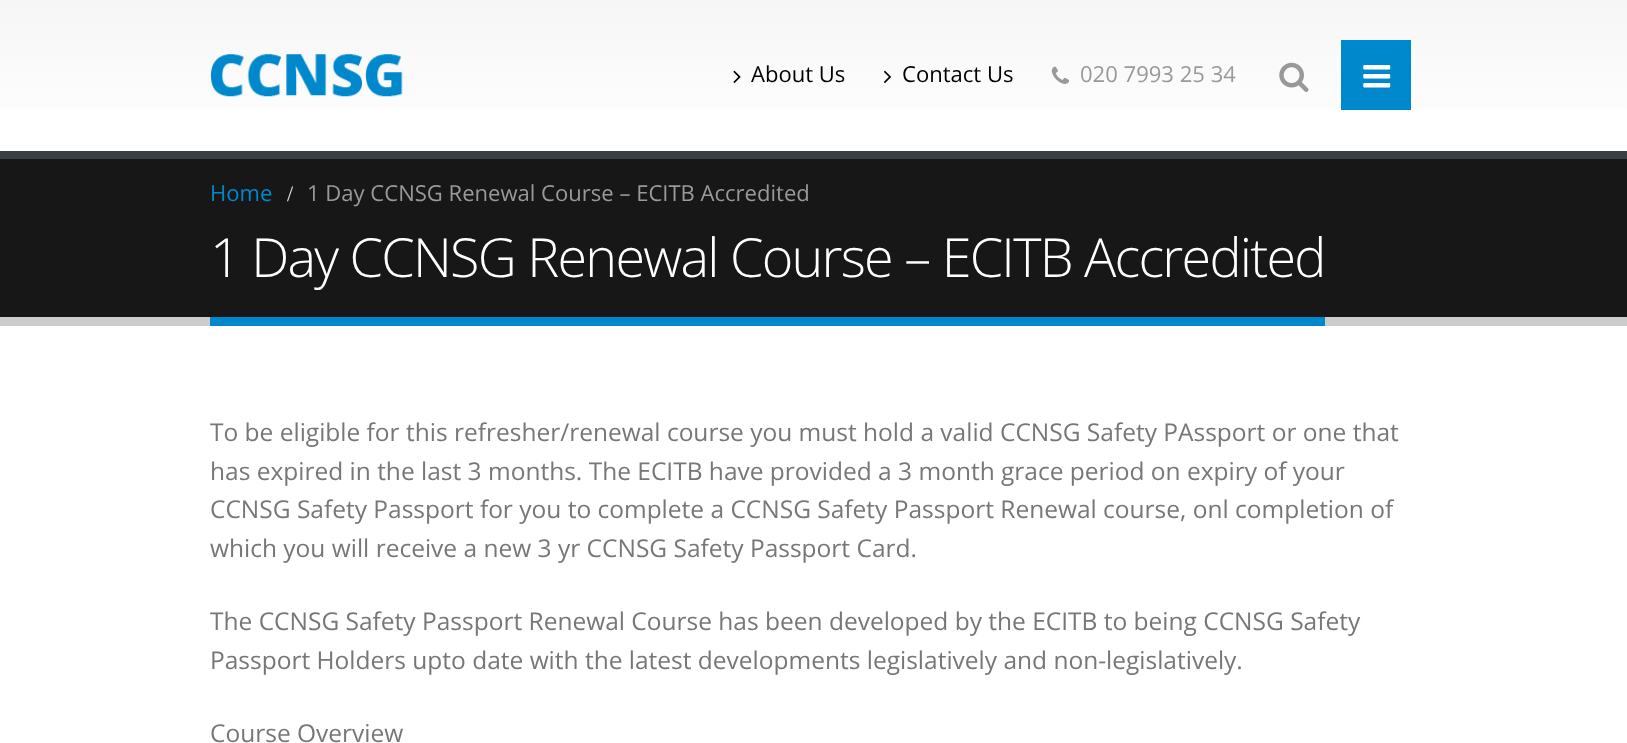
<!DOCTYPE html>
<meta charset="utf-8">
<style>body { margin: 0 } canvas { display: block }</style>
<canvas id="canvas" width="1627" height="743"></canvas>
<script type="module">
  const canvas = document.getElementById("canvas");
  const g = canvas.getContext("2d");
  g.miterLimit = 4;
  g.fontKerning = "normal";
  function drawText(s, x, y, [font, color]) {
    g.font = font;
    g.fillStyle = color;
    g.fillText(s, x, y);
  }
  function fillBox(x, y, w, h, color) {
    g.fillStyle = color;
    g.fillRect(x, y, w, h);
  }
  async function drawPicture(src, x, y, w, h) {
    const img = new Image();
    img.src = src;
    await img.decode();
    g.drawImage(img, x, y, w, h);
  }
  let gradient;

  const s1 = ["22.05px Open Sans", "#000000"];
  const s2 = ["22.05px Open Sans", "#999999"];
  const s3 = ["22.05px Open Sans", "#0088CC"];
  const s4 = ["22.05px Liberation Serif", "#E5E5E5"];
  const s5 = ["300 53.9px Open Sans", "#FFFFFF"];
  const s6 = ["24.5px Open Sans", "#777777"];

  fillBox(0, 0, 1627, 743, "#FFFFFF");
  gradient = g.createLinearGradient(814, 0, 814, 151);
  gradient.addColorStop(0, "#F6F6F6");
  gradient.addColorStop(1, "#FFFFFF");
  g.fillStyle = gradient;
  g.fillRect(0, 0, 1627, 109);
  await drawPicture("pic1.png", 210, 54, 193, 43);
  await drawPicture("pic2.png", 733, 70, 8, 13);
  drawText("About Us", 751, 82, s1);
  await drawPicture("pic3.png", 884, 70, 7, 13);
  drawText("Contact Us", 902, 82, s1);
  await drawPicture("pic4.png", 1051, 66, 18, 18);
  drawText("020 7993 25 34", 1080, 82, s2);
  await drawPicture("pic5.png", 1279, 62, 30, 30);
  fillBox(1341, 40, 70, 70, "#0088CC");
  await drawPicture("pic6.png", 1363, 65, 28, 23);
  fillBox(0, 159, 1627, 158, "#171717");
  fillBox(0, 151, 1627, 8, "#384045");
  fillBox(0, 317, 1627, 9, "#CCCCCC");
  drawText("Home", 210, 201, s3);
  drawText("/", 287, 201, s4);
  drawText("1 Day CCNSG Renewal Course – ECITB Accredited", 307, 201, s2);
  fillBox(210, 317, 1115, 9, "#0088CC");
  g.letterSpacing = "-1.75px";
  drawText("1 Day CCNSG Renewal Course – ECITB Accredited", 210, 277, s5);
  g.letterSpacing = "0px";
  drawText("To be eligible for this refresher/renewal course you must hold a valid CCNSG Safety PAssport or one that", 210, 441, s6);
  drawText("has expired in the last 3 months. The ECITB have provided a 3 month grace period on expiry of your", 210, 480, s6);
  drawText("CCNSG Safety Passport for you to complete a CCNSG Safety Passport Renewal course, onl completion of", 210, 518, s6);
  drawText("which you will receive a new 3 yr CCNSG Safety Passport Card.", 210, 557, s6);
  drawText("The CCNSG Safety Passport Renewal Course has been developed by the ECITB to being CCNSG Safety", 210, 630, s6);
  drawText("Passport Holders upto date with the latest developments legislatively and non-legislatively.", 210, 669, s6);
  drawText("Course Overview", 210, 742, s6);
</script>
